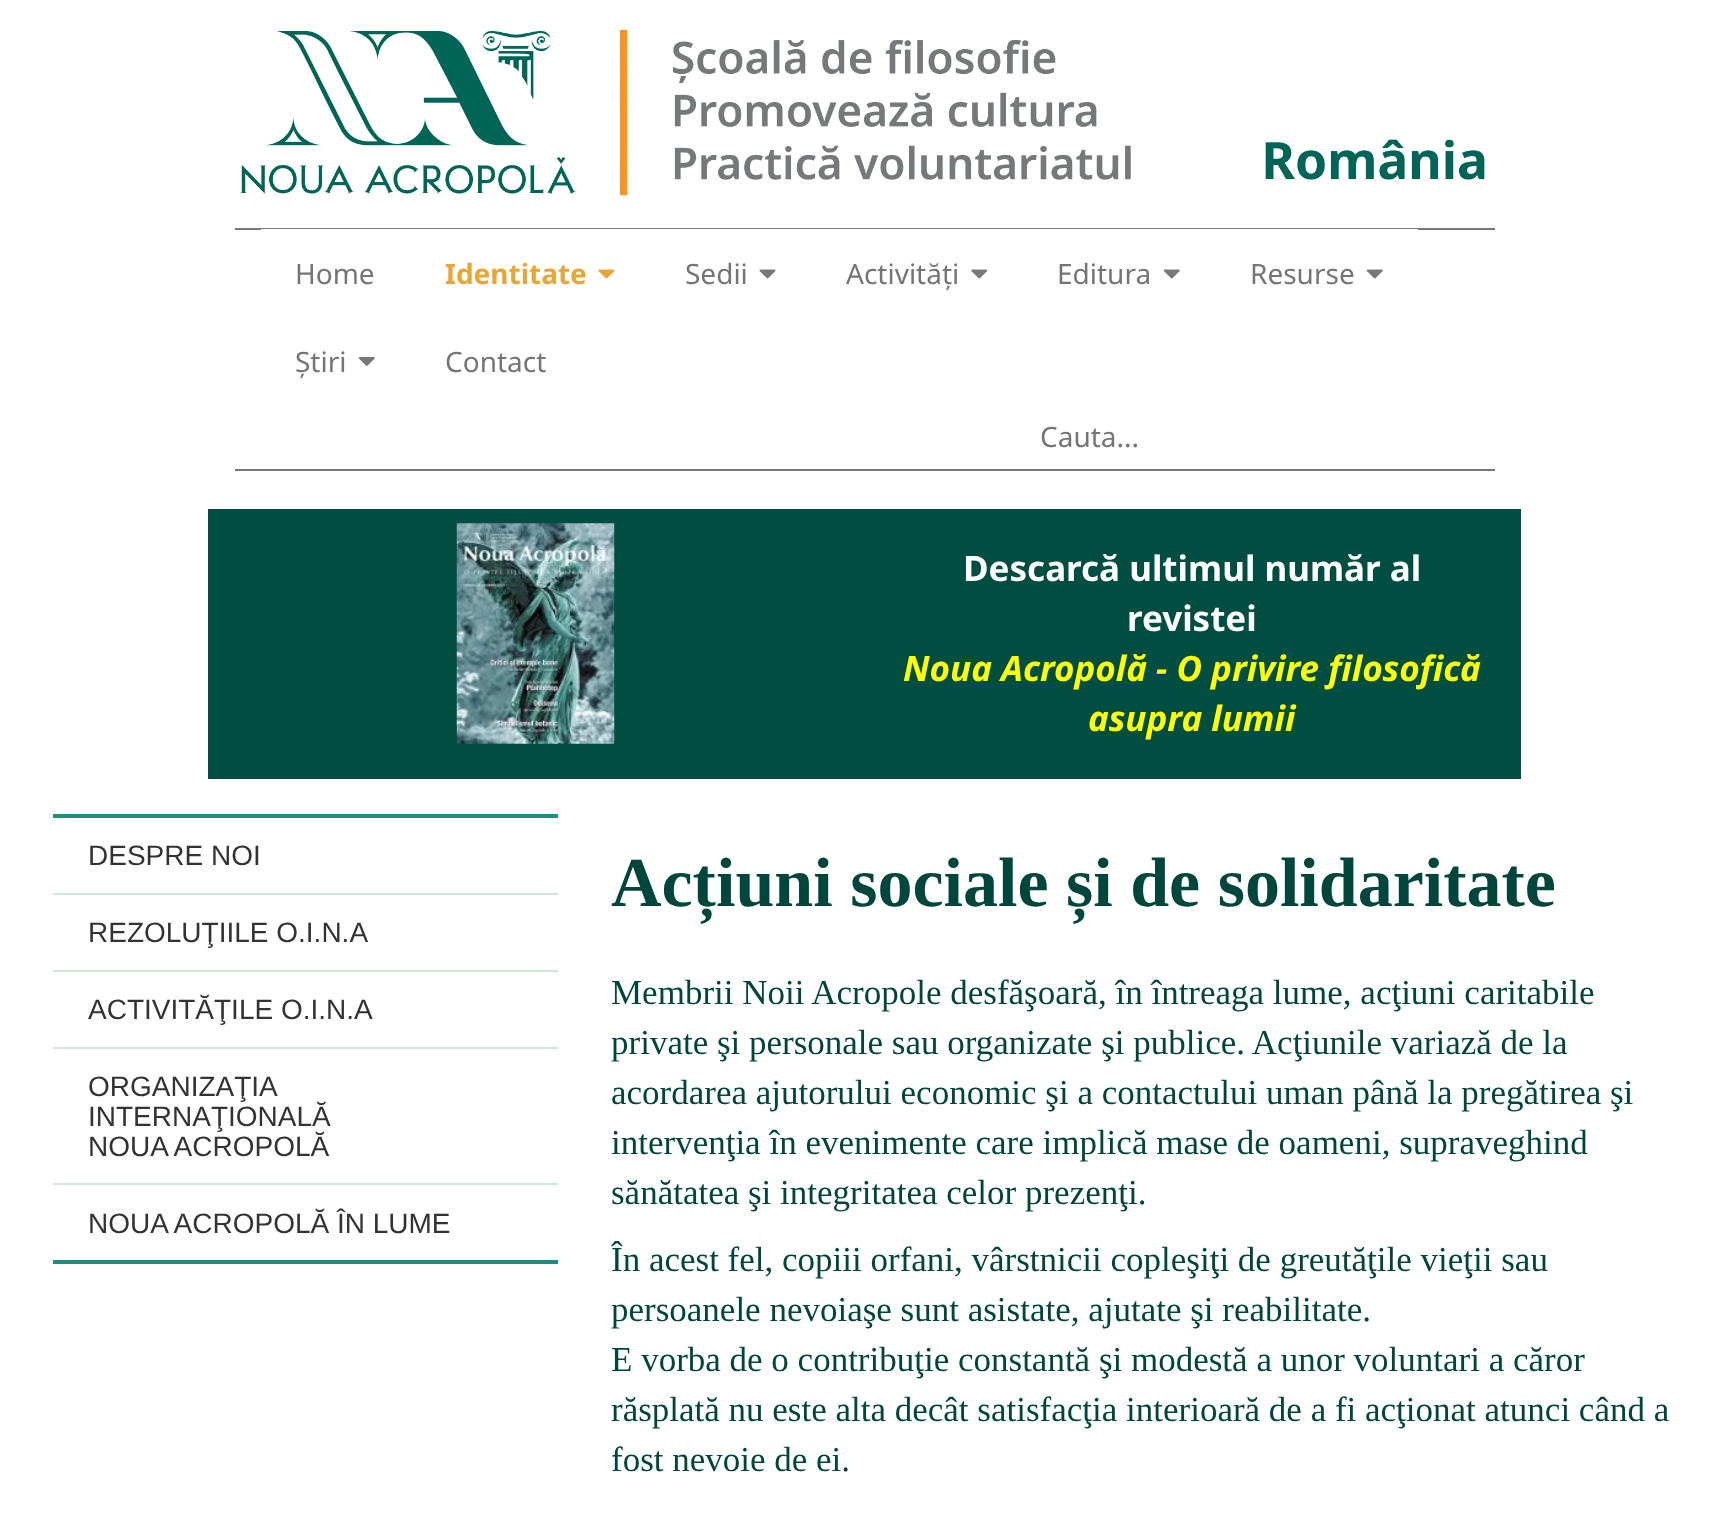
<!DOCTYPE html>
<meta charset="utf-8">
<style>body { margin: 0 } canvas { display: block }</style>
<canvas id="canvas" width="1726" height="1527"></canvas>
<script type="module">
  const canvas = document.getElementById("canvas");
  const g = canvas.getContext("2d");
  g.miterLimit = 4;
  g.fontKerning = "normal";
  function drawText(s, x, y, [font, color]) {
    g.font = font;
    g.fillStyle = color;
    g.fillText(s, x, y);
  }
  function fillBox(x, y, w, h, color) {
    g.fillStyle = color;
    g.fillRect(x, y, w, h);
  }
  async function drawPicture(src, x, y, w, h) {
    const img = new Image();
    img.src = src;
    await img.decode();
    g.drawImage(img, x, y, w, h);
  }

  const s1 = ["28px Noto Sans", "#757575"];
  const s2 = ["bold 28px Noto Sans", "#E9A635"];
  const s3 = ["bold 35px Noto Sans", "#FFFFFF"];
  const s4 = ["italic bold 35px Noto Sans", "#FFFF00"];
  const s5 = ["28px Liberation Sans", "#333333"];
  const s6 = ["bold 70px Liberation Serif", "#00463C"];
  const s7 = ["35px Liberation Serif", "#00463C"];

  fillBox(0, 0, 1726, 1527, "#FFFFFF");
  await drawPicture("pic1.png", 240, 30, 1245, 166);
  fillBox(235, 228, 1260, 2, "#787878");
  fillBox(235, 469, 1260, 2, "#787878");
  fillBox(261, 229, 1157, 1, "#FFFFFF");
  drawText("Home", 295, 284, s1);
  drawText("Identitate", 445, 284, s2);
  await drawPicture("pic2.png", 598, 269, 17, 10);
  drawText("Sedii", 685, 284, s1);
  await drawPicture("pic3.png", 759, 269, 17, 10);
  drawText("Activități", 846, 284, s1);
  await drawPicture("pic4.png", 971, 269, 17, 10);
  drawText("Editura", 1057, 284, s1);
  await drawPicture("pic5.png", 1163, 269, 17, 10);
  drawText("Resurse", 1250, 284, s1);
  await drawPicture("pic5.png", 1366, 269, 17, 10);
  drawText("Știri", 295, 372, s1);
  await drawPicture("pic6.png", 358, 357, 17, 9);
  drawText("Contact", 445, 372, s1);
  drawText("Cauta...", 1040, 447, s1);
  fillBox(208, 509, 1313, 270, "#004D41");
  await drawPicture("pic7.png", 456, 523, 159, 221);
  drawText("Descarcă ultimul număr al", 963, 581, s3);
  drawText("revistei", 1127, 631, s3);
  drawText("Noua Acropolă - O privire filosofică", 903, 681, s4);
  drawText("asupra lumii", 1088, 731, s4);
  fillBox(53, 814, 505, 4, "#1B8E7F");
  fillBox(53, 1260, 505, 4, "#1B8E7F");
  drawText("DESPRE NOI", 88, 865, s5);
  fillBox(53, 893, 505, 2, "#CDE8D8");
  drawText("REZOLUŢIILE O.I.N.A", 88, 942, s5);
  fillBox(53, 970, 505, 2, "#CDE8D8");
  drawText("ACTIVITĂŢILE O.I.N.A", 88, 1019, s5);
  fillBox(53, 1047, 505, 2, "#CDE8D8");
  drawText("ORGANIZAŢIA", 88, 1096, s5);
  drawText("INTERNAŢIONALĂ", 88, 1126, s5);
  drawText("NOUA ACROPOLĂ", 88, 1156, s5);
  fillBox(53, 1183, 505, 2, "#CDE8D8");
  drawText("NOUA ACROPOLĂ ÎN LUME", 88, 1233, s5);
  drawText("Acțiuni sociale și de solidaritate", 611, 906, s6);
  drawText("Membrii Noii Acropole desfăşoară, în întreaga lume, acţiuni caritabile", 611, 1004, s7);
  drawText("private şi personale sau organizate şi publice. Acţiunile variază de la", 611, 1054, s7);
  drawText("acordarea ajutorului economic şi a contactului uman până la pregătirea şi", 611, 1104, s7);
  drawText("intervenţia în evenimente care implică mase de oameni, supraveghind", 611, 1154, s7);
  drawText("sănătatea şi integritatea celor prezenţi.", 611, 1204, s7);
  drawText("În acest fel, copiii orfani, vârstnicii copleşiţi de greutăţile vieţii sau", 611, 1271, s7);
  drawText("persoanele nevoiaşe sunt asistate, ajutate şi reabilitate.", 611, 1321, s7);
  drawText("E vorba de o contribuţie constantă şi modestă a unor voluntari a căror", 611, 1371, s7);
  drawText("răsplată nu este alta decât satisfacţia interioară de a fi acţionat atunci când a", 611, 1421, s7);
  drawText("fost nevoie de ei.", 611, 1471, s7);
</script>
